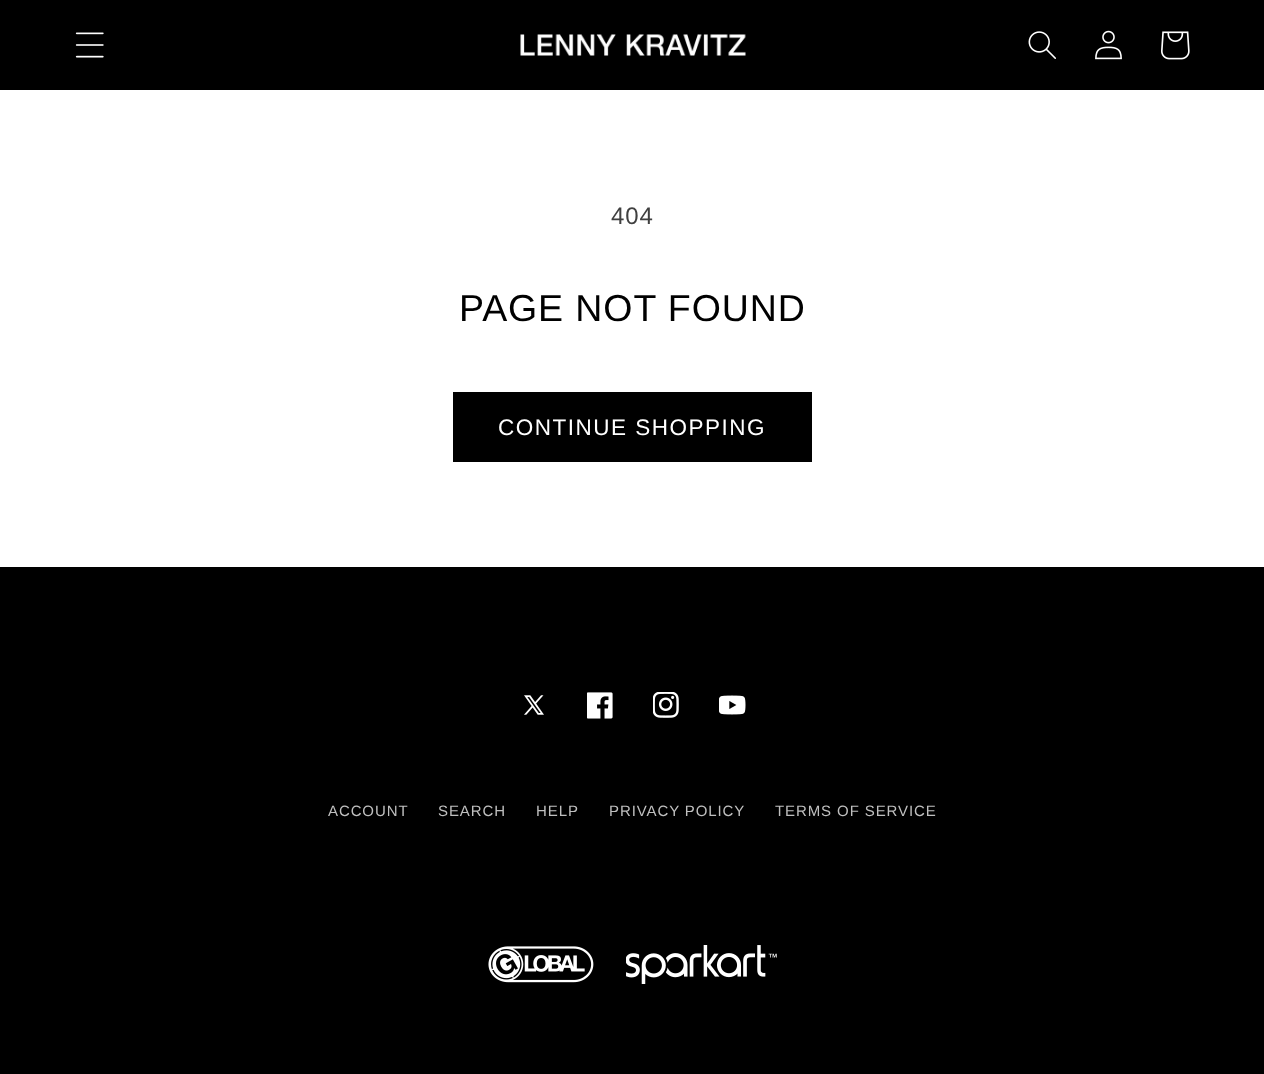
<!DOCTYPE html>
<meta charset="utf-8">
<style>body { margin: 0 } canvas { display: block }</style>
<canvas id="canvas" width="1264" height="1074"></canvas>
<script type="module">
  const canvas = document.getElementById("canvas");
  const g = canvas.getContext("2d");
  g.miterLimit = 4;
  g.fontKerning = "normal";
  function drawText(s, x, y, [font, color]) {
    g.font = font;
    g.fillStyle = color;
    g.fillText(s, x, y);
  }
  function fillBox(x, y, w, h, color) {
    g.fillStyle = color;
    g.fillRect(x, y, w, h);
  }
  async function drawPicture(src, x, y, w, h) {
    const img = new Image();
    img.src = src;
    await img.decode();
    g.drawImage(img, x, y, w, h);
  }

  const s1 = ["24px Liberation Sans", "#404040"];
  const s2 = ["37.5px Liberation Sans", "#000000"];
  const s3 = ["22.5px Liberation Sans", "#FFFFFF"];
  const s4 = ["15px Liberation Sans", "#BFBFBF"];

  fillBox(0, 0, 1264, 1074, "#FFFFFF");
  fillBox(0, 0, 1264, 90, "#000000");
  await drawPicture("pic1.png", 75, 32, 29, 26);
  await drawPicture("pic2.png", 520, 34, 226, 22);
  await drawPicture("pic3.png", 1028, 31, 28, 28);
  await drawPicture("pic4.png", 1095, 30, 27, 30);
  await drawPicture("pic5.png", 1161, 31, 29, 29);
  g.letterSpacing = "0.9px";
  drawText("404", 611, 224, s1);
  drawText("PAGE NOT FOUND", 459, 321, s2);
  fillBox(453, 392, 359, 70, "#000000");
  g.letterSpacing = "1.5px";
  drawText("CONTINUE SHOPPING", 498, 435, s3);
  fillBox(0, 567, 1264, 507, "#000000");
  await drawPicture("pic6.png", 524, 695, 20, 20);
  await drawPicture("pic7.png", 587, 692, 26, 27);
  await drawPicture("pic8.png", 653, 692, 26, 26);
  await drawPicture("pic9.png", 719, 695, 27, 20);
  g.letterSpacing = "0.9px";
  drawText("ACCOUNT", 328, 816, s4);
  drawText("SEARCH", 438, 816, s4);
  drawText("HELP", 536, 816, s4);
  drawText("PRIVACY POLICY", 609, 816, s4);
  drawText("TERMS OF SERVICE", 775, 816, s4);
  await drawPicture("pic10.png", 488, 946, 106, 37);
  await drawPicture("pic11.png", 626, 945, 151, 39);
</script>
